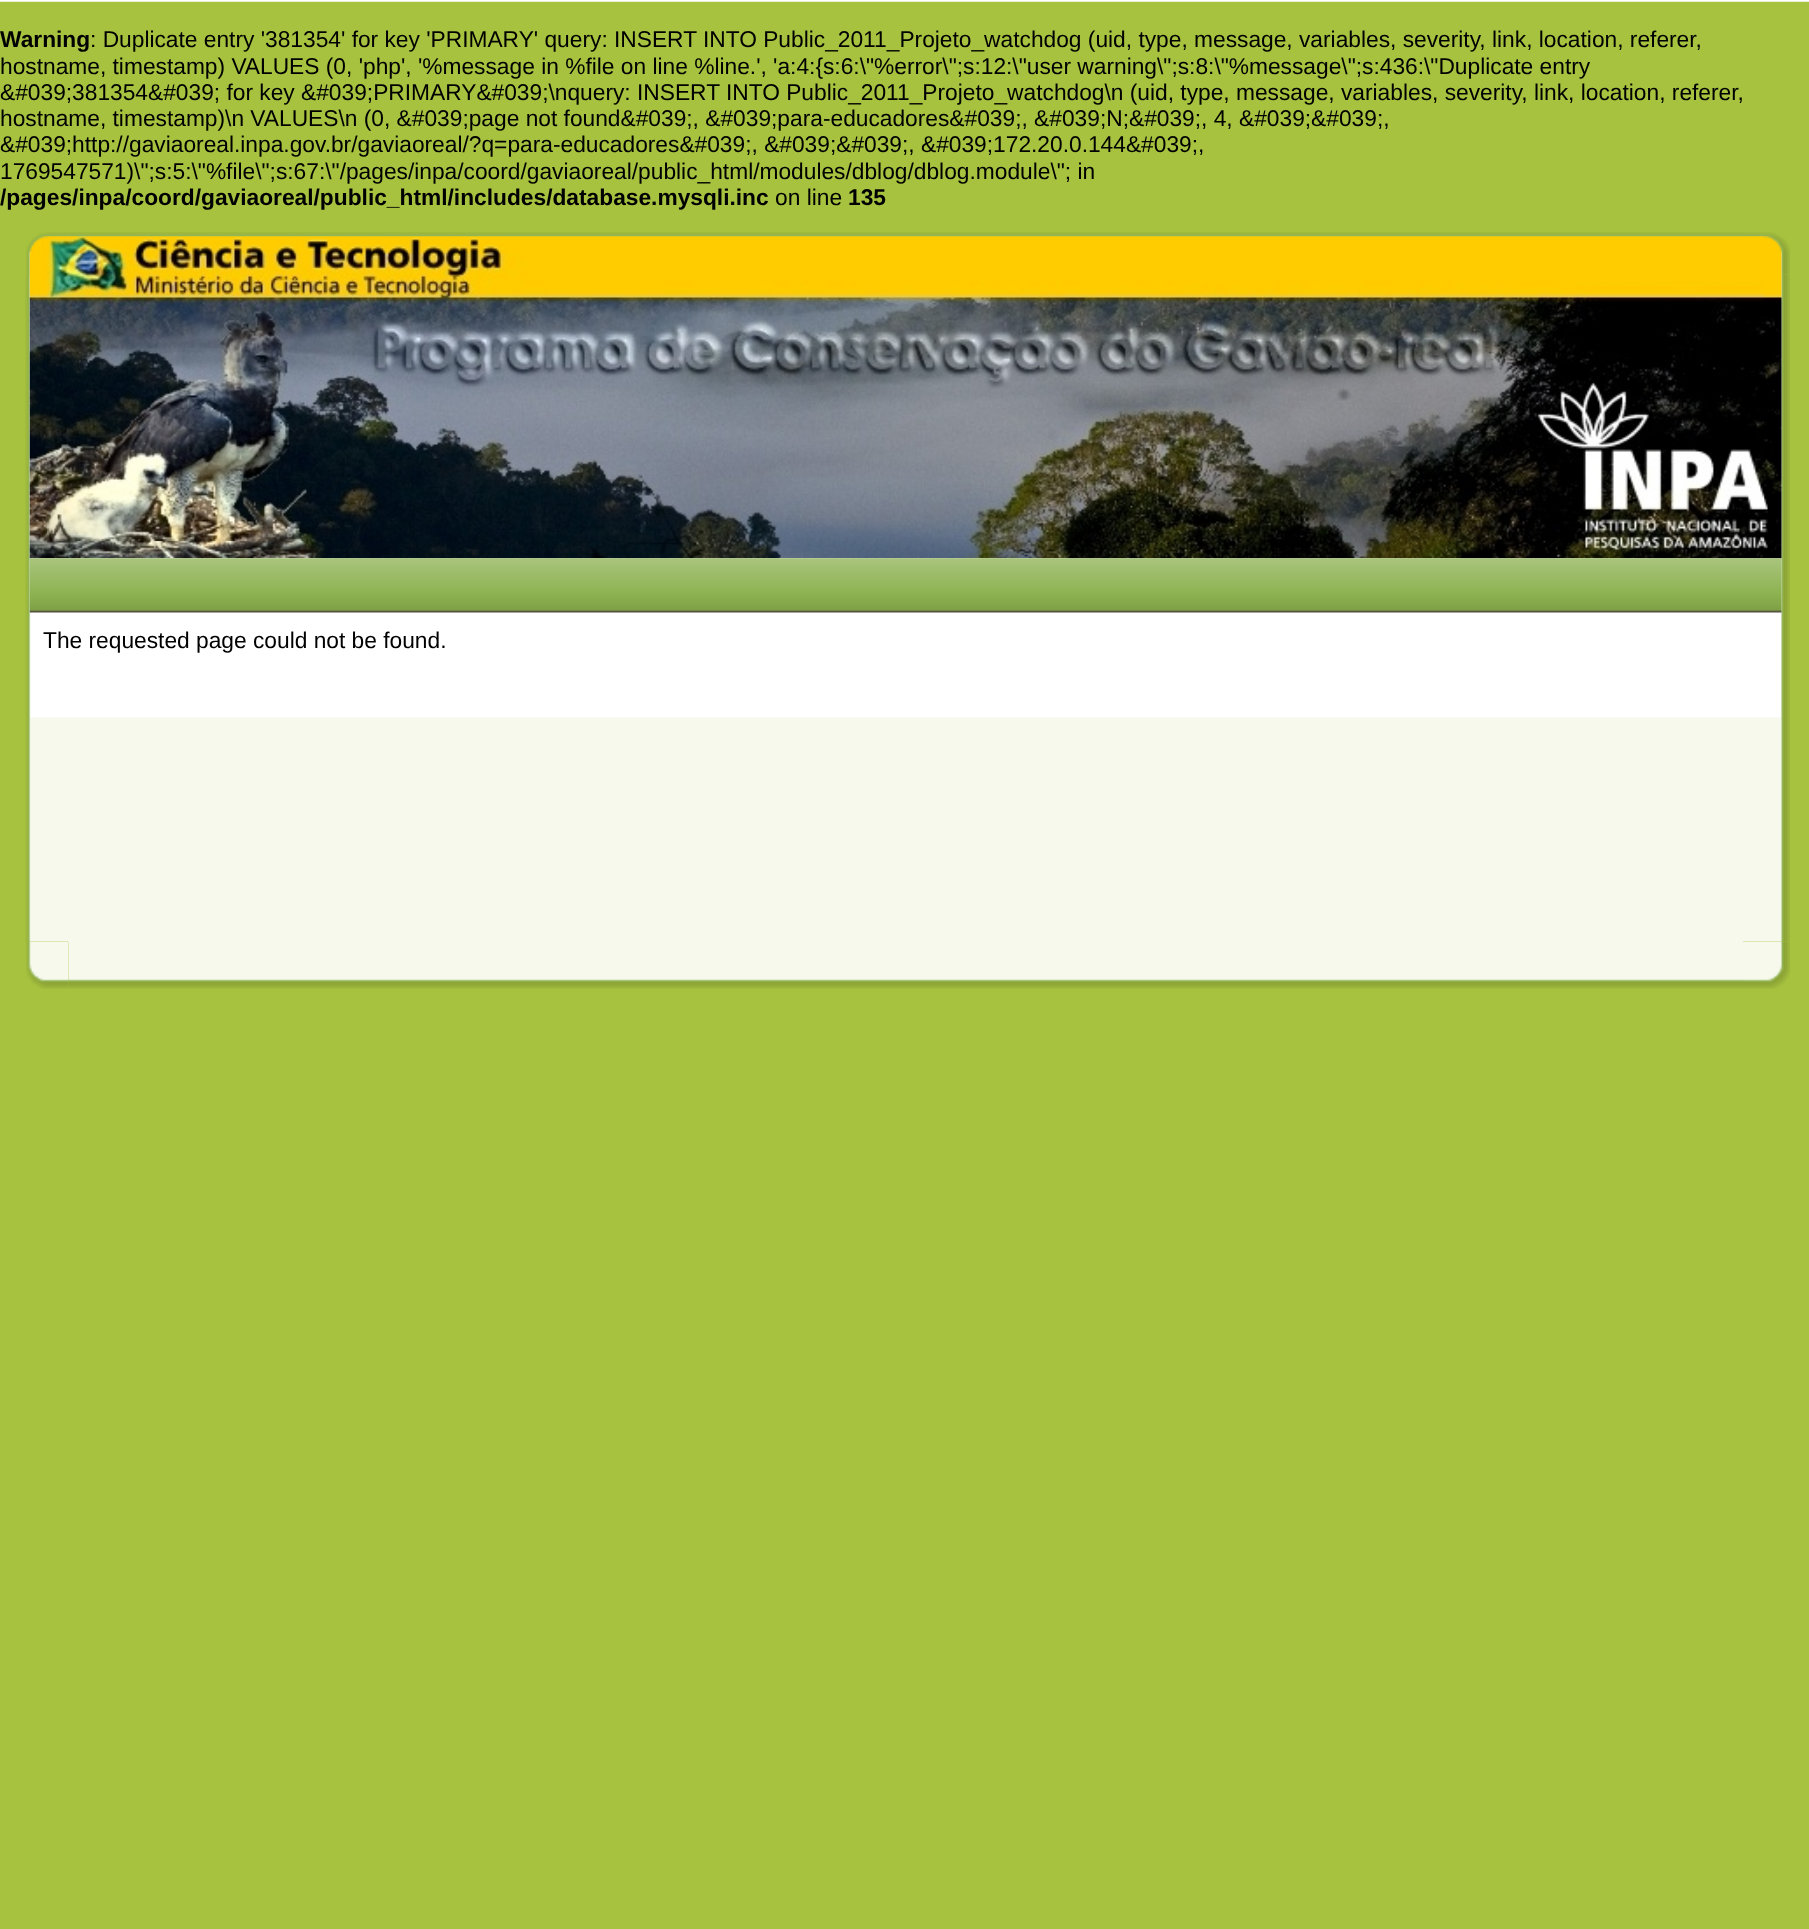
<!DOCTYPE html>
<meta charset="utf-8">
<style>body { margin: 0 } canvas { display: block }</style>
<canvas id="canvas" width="1809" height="1929"></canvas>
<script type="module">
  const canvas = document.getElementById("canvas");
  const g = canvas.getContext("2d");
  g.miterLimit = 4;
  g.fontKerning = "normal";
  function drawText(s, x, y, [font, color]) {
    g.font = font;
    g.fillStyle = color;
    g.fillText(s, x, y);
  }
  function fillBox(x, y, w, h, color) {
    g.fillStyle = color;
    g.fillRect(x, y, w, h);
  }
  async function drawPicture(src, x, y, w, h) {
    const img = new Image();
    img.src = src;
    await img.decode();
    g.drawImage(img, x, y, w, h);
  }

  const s1 = ["bold 22.75px Liberation Sans", "#000000"];
  const s2 = ["22.75px Liberation Sans", "#000000"];

  fillBox(0, 0, 1809, 1929, "#A6C23F");
  await drawPicture("pic1.png", 0, 0, 1809, 2);
  drawText("Warning", 0, 47, s1);
  drawText(": Duplicate entry '381354' for key 'PRIMARY' query: INSERT INTO Public_2011_Projeto_watchdog (uid, type, message, variables, severity, link, location, referer,", 90, 47, s2);
  drawText("hostname, timestamp) VALUES (0, 'php', '%message in %file on line %line.', 'a:4:{s:6:\\\"%error\\\";s:12:\\\"user warning\\\";s:8:\\\"%message\\\";s:436:\\\"Duplicate entry", 0, 74, s2);
  drawText("&#039;381354&#039; for key &#039;PRIMARY&#039;\\nquery: INSERT INTO Public_2011_Projeto_watchdog\\n (uid, type, message, variables, severity, link, location, referer,", 0, 100, s2);
  drawText("hostname, timestamp)\\n VALUES\\n (0, &#039;page not found&#039;, &#039;para-educadores&#039;, &#039;N;&#039;, 4, &#039;&#039;,", 0, 126, s2);
  drawText("&#039;http://gaviaoreal.inpa.gov.br/gaviaoreal/?q=para-educadores&#039;, &#039;&#039;, &#039;172.20.0.144&#039;,", 0, 152, s2);
  drawText("1769547571)\\\";s:5:\\\"%file\\\";s:67:\\\"/pages/inpa/coord/gaviaoreal/public_html/modules/dblog/dblog.module\\\"; in", 0, 179, s2);
  drawText("/pages/inpa/coord/gaviaoreal/public_html/includes/database.mysqli.inc", 0, 205, s1);
  drawText("on line", 775, 205, s2);
  drawText("135", 848, 205, s1);
  await drawPicture("pic2.png", 26, 232, 43, 43);
  await drawPicture("pic3.png", 68, 232, 1675, 5);
  await drawPicture("pic4.png", 1743, 232, 47, 43);
  await drawPicture("pic11.png", 26, 941, 43, 48);
  await drawPicture("pic5.png", 25, 275, 43, 667);
  fillBox(68, 558, 1675, 384, "#FFFFFF");
  await drawPicture("pic13.png", 1743, 941, 47, 48);
  await drawPicture("pic6.png", 1743, 275, 47, 667);
  await drawPicture("pic7.png", 29, 236, 1753, 323);
  await drawPicture("pic8.png", 47, 253, 1717, 288);
  await drawPicture("pic9.png", 29, 558, 1753, 55);
  drawText("The requested page could not be found.", 43, 648, s2);
  await drawPicture("pic12.png", 68, 942, 1675, 47);
  await drawPicture("pic10.png", 30, 717, 1751, 263);
</script>
